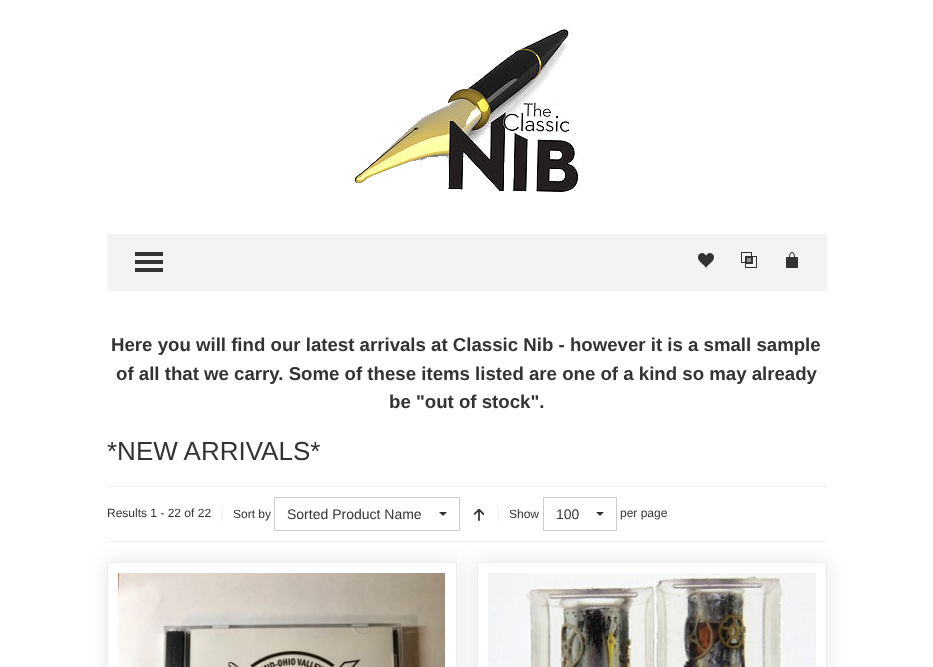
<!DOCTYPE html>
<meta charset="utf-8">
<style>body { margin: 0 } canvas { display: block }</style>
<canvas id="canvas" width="933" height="667"></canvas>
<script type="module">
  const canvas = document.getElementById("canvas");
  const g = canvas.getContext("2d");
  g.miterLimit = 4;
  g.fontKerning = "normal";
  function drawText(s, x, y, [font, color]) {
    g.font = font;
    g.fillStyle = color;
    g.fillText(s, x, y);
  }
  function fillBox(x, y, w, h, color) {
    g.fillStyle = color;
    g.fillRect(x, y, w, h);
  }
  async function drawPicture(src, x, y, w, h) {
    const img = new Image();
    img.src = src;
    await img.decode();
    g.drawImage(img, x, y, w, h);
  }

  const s1 = ["bold 18.65px Liberation Sans", "#333333"];
  const s2 = ["26px Liberation Sans", "#333333"];
  const s3 = ["12px Liberation Sans", "#333333"];
  const s4 = ["14px Liberation Sans", "#333333"];

  fillBox(0, 0, 933, 667, "#FFFFFF");
  await drawPicture("pic1.png", 355, 23, 226, 170);
  fillBox(107, 234, 720, 57, "#F3F3F3");
  await drawPicture("pic2.png", 135, 252, 28, 20);
  await drawPicture("pic3.png", 698, 253, 16, 15);
  await drawPicture("pic4.png", 741, 252, 16, 16);
  await drawPicture("pic5.png", 786, 252, 12, 16);
  drawText("Here you will find our latest arrivals at Classic Nib - however it is a small sample", 111, 351, s1);
  drawText("of all that we carry. Some of these items listed are one of a kind so may already", 116, 380, s1);
  drawText("be \"out of stock\".", 389, 408, s1);
  drawText("*NEW ARRIVALS*", 107, 460, s2);
  fillBox(107, 486, 720, 1, "#EEEEEE");
  g.save();
  g.beginPath();
  g.moveTo(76, 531);
  g.lineTo(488, 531);
  g.lineTo(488, 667);
  g.lineTo(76, 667);
  g.closePath();
  g.moveTo(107, 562);
  g.lineTo(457, 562);
  g.lineTo(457, 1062);
  g.lineTo(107, 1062);
  g.closePath();
  g.clip("evenodd");
  g.fillStyle = "rgba(0, 0, 0, 0.1)";
  g.filter = "blur(10px)";
  g.beginPath();
  g.rect(107, 562, 350, 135);
  g.fill();
  g.filter = "none";
  g.restore();
  g.strokeStyle = "#EEEEEE";
  g.strokeRect(107.5, 562.5, 349, 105);
  g.save();
  g.beginPath();
  g.moveTo(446, 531);
  g.lineTo(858, 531);
  g.lineTo(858, 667);
  g.lineTo(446, 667);
  g.closePath();
  g.moveTo(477, 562);
  g.lineTo(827, 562);
  g.lineTo(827, 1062);
  g.lineTo(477, 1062);
  g.closePath();
  g.clip("evenodd");
  g.fillStyle = "rgba(0, 0, 0, 0.1)";
  g.filter = "blur(10px)";
  g.beginPath();
  g.rect(477, 562, 350, 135);
  g.fill();
  g.filter = "none";
  g.restore();
  fillBox(107, 541, 720, 1, "#EEEEEE");
  drawText("Results 1 - 22 of 22", 107, 517, s3);
  fillBox(222, 507, 1, 14, "#EEEEEE");
  drawText("Sort by", 233, 518, s3);
  g.strokeStyle = "#CCCCCC";
  g.strokeRect(274.5, 497.5, 185, 33);
  drawText("Sorted Product Name", 287, 519, s4);
  g.beginPath();
  g.moveTo(439, 512);
  g.lineTo(447, 512);
  g.lineTo(443, 516);
  g.closePath();
  g.fill();
  await drawPicture("pic6.png", 473, 508, 12, 13);
  fillBox(498, 507, 1, 14, "#EEEEEE");
  drawText("Show", 509, 518, s3);
  g.strokeRect(543.5, 497.5, 73, 33);
  drawText("100", 556, 519, s4);
  g.beginPath();
  g.moveTo(596, 512);
  g.lineTo(604, 512);
  g.lineTo(600, 516);
  g.closePath();
  g.fill();
  drawText("per page", 620, 517, s3);
  await drawPicture("pic7.png", 118, 573, 327, 94);
  g.strokeStyle = "#EEEEEE";
  g.strokeRect(477.5, 562.5, 349, 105);
  await drawPicture("pic8.png", 488, 573, 328, 94);
</script>
